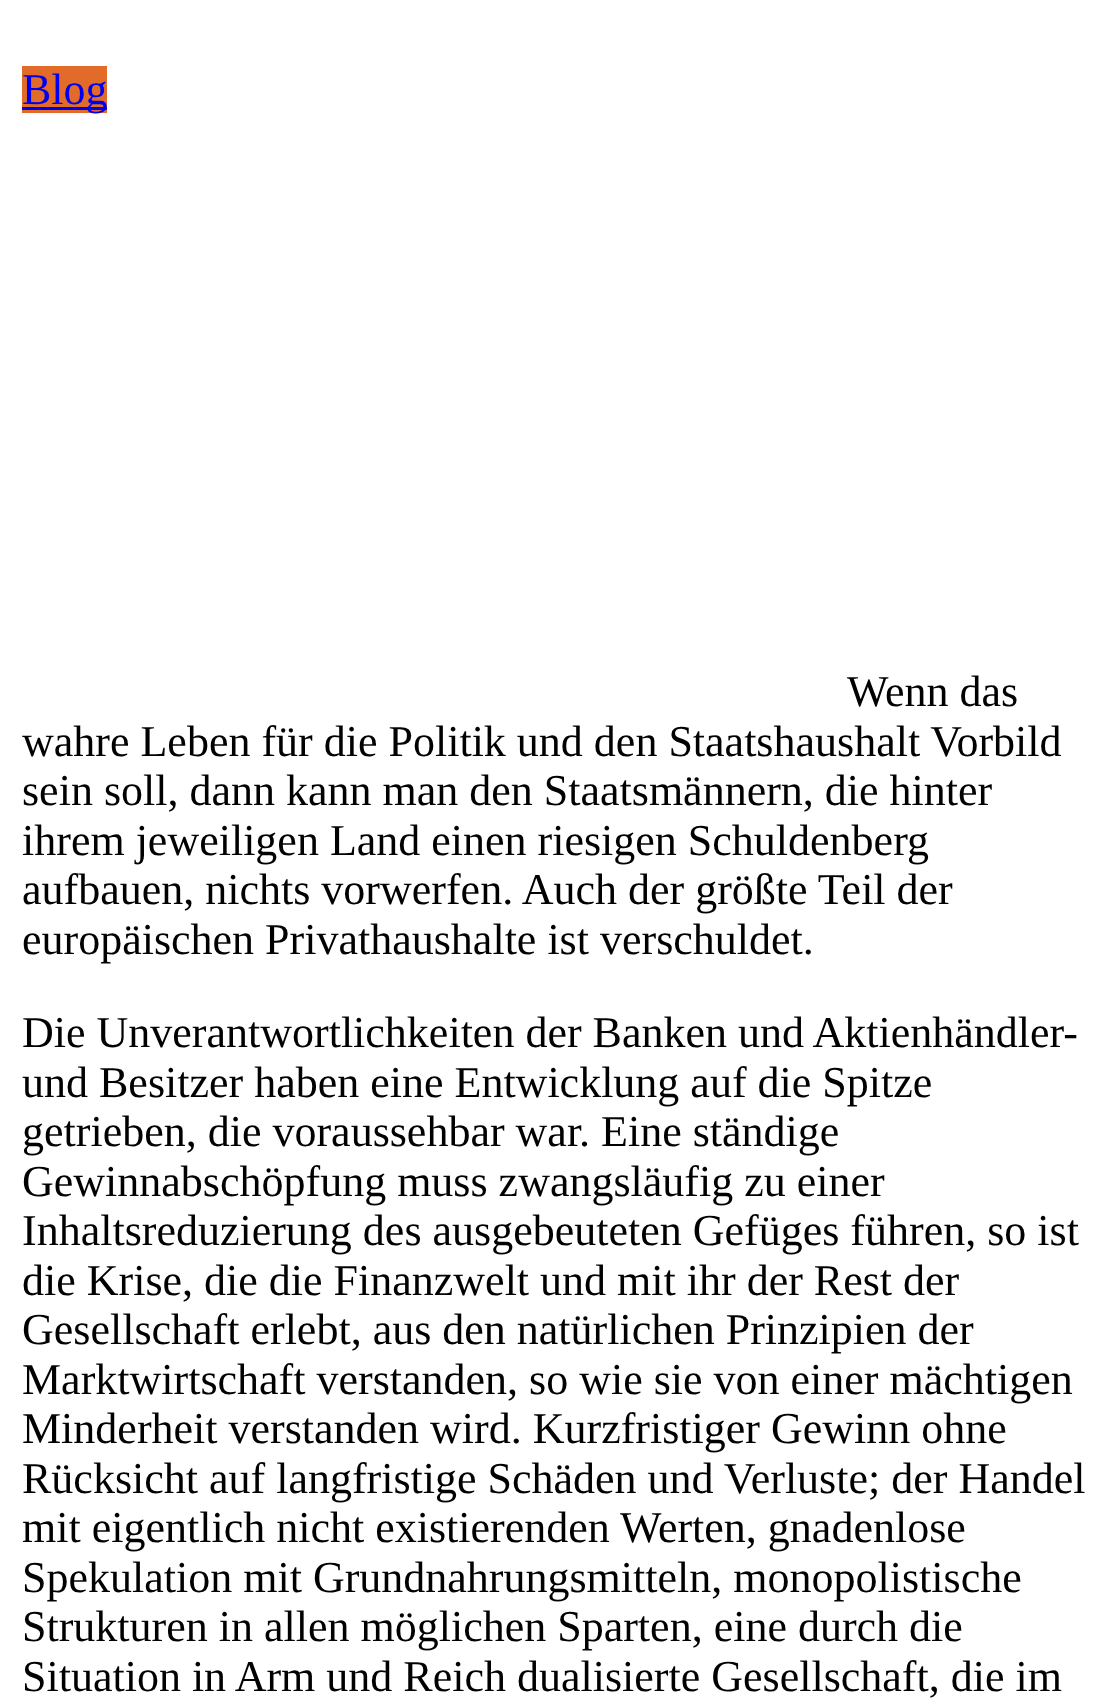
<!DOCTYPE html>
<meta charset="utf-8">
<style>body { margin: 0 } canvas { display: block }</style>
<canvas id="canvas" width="1118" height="1705"></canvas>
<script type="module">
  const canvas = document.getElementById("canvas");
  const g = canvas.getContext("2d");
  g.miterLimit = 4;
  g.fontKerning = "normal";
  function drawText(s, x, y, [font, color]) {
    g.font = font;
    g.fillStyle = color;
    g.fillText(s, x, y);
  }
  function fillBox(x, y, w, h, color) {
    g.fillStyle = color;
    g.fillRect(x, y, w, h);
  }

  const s1 = ["44px Liberation Serif", "#0000EE"];
  const s2 = ["44px Liberation Serif", "#000000"];

  fillBox(0, 0, 1118, 1705, "#FFFFFF");
  fillBox(22, 66, 85, 47, "#E36B2A");
  fillBox(22, 107, 85, 3, "#0000EE");
  drawText("Blog", 22, 104, s1);
  drawText("Wenn das", 847, 706, s2);
  drawText("wahre Leben für die Politik und den Staatshaushalt Vorbild", 22, 756, s2);
  drawText("sein soll, dann kann man den Staatsmännern, die hinter", 22, 805, s2);
  drawText("ihrem jeweiligen Land einen riesigen Schuldenberg", 22, 855, s2);
  drawText("aufbauen, nichts vorwerfen. Auch der größte Teil der", 22, 904, s2);
  drawText("europäischen Privathaushalte ist verschuldet.", 22, 954, s2);
  drawText("Die Unverantwortlichkeiten der Banken und Aktienhändler-", 22, 1047, s2);
  drawText("und Besitzer haben eine Entwicklung auf die Spitze", 22, 1097, s2);
  drawText("getrieben, die voraussehbar war. Eine ständige", 22, 1146, s2);
  drawText("Gewinnabschöpfung muss zwangsläufig zu einer", 22, 1196, s2);
  drawText("Inhaltsreduzierung des ausgebeuteten Gefüges führen, so ist", 22, 1245, s2);
  drawText("die Krise, die die Finanzwelt und mit ihr der Rest der", 22, 1295, s2);
  drawText("Gesellschaft erlebt, aus den natürlichen Prinzipien der", 22, 1344, s2);
  drawText("Marktwirtschaft verstanden, so wie sie von einer mächtigen", 22, 1394, s2);
  drawText("Minderheit verstanden wird. Kurzfristiger Gewinn ohne", 22, 1443, s2);
  drawText("Rücksicht auf langfristige Schäden und Verluste; der Handel", 22, 1493, s2);
  drawText("mit eigentlich nicht existierenden Werten, gnadenlose", 22, 1542, s2);
  drawText("Spekulation mit Grundnahrungsmitteln, monopolistische", 22, 1592, s2);
  drawText("Strukturen in allen möglichen Sparten, eine durch die", 22, 1641, s2);
  drawText("Situation in Arm und Reich dualisierte Gesellschaft, die im", 22, 1691, s2);
</script>
